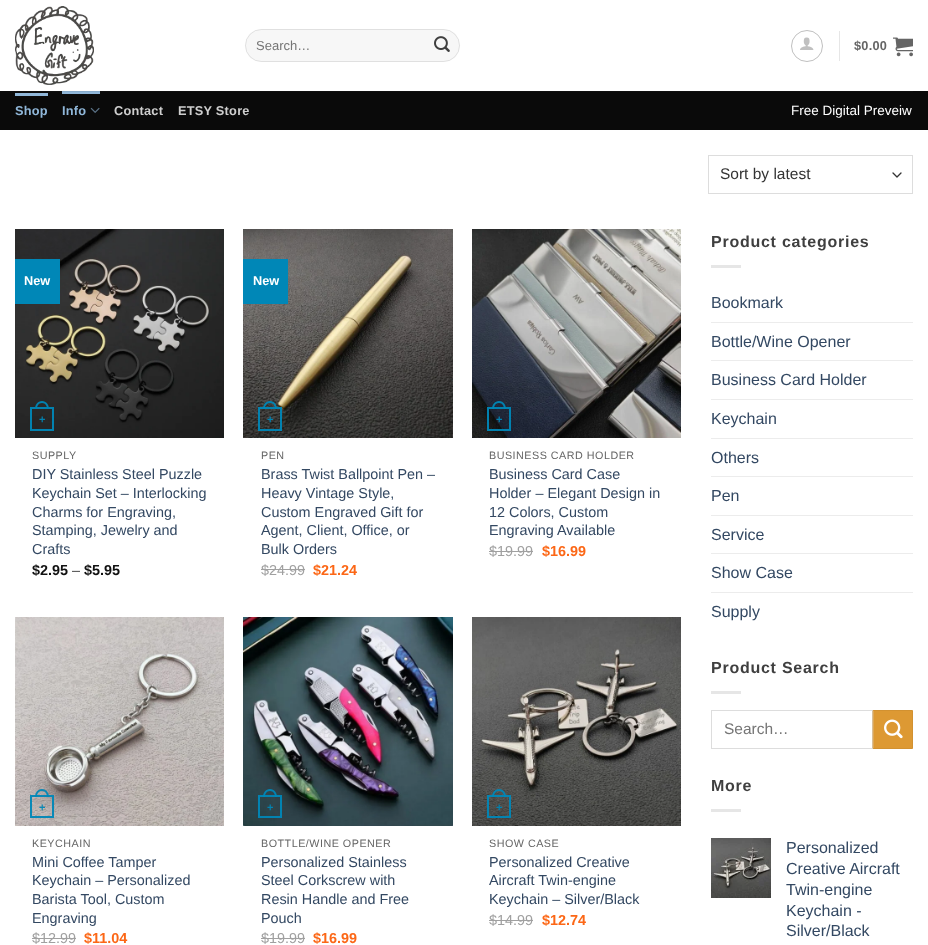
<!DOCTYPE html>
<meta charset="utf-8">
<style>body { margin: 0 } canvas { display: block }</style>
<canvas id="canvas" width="928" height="945"></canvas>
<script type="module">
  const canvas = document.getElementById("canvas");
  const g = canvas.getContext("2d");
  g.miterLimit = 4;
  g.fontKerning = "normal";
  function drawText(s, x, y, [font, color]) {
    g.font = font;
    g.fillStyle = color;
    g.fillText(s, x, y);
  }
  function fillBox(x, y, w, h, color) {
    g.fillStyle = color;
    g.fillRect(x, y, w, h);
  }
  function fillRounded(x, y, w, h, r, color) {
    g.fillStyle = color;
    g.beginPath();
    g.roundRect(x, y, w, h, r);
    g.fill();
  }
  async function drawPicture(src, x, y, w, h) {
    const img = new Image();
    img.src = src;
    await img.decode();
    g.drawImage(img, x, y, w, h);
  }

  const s1 = ["13px Liberation Sans", "#757575"];
  const s2 = ["bold 12.75px Liberation Sans", "#656565"];
  const s3 = ["bold 12.75px Liberation Sans", "#90B7D9"];
  const s4 = ["bold 12.75px Liberation Sans", "#CECECE"];
  const s5 = ["13.5px Liberation Sans", "#FFFFFF"];
  const s6 = ["15.5px Liberation Sans", "#333333"];
  const s7 = ["bold 12.75px Liberation Sans", "#FFFFFF"];
  const s8 = ["bold 11px Liberation Sans", "#0282B0"];
  const s9 = ["10.75px Liberation Sans", "#656565"];
  const s10 = ["14.4px Liberation Sans", "#334862"];
  const s11 = ["bold 14.4px Liberation Sans", "#111111"];
  const s12 = ["14.4px Liberation Sans", "#3F3F3F"];
  const s13 = ["14.4px Liberation Sans", "#A0A0A0"];
  const s14 = ["bold 14.4px Liberation Sans", "#FC6716"];
  const s15 = ["bold 11px Liberation Sans", "#0989B6"];
  const s16 = ["bold 16px Liberation Sans", "#3F3F3F"];
  const s17 = ["16px Liberation Sans", "#334862"];
  const s18 = ["15.5px Liberation Sans", "#757575"];

  fillBox(0, 0, 928, 945, "#FFFFFF");
  await drawPicture("pic1.png", 15, 6, 79, 79);
  fillRounded(245, 29, 215, 33, 16.5, "#F7F7F7");
  g.beginPath();
  g.roundRect(245.5, 29.5, 214, 32, 16);
  g.strokeStyle = "rgba(0, 0, 0, 0.09)";
  g.stroke();
  drawText("Search…", 256, 50, s1);
  await drawPicture("pic2.png", 434, 36, 16, 16);
  g.beginPath();
  g.arc(807, 46, 15.5, 0, Math.PI * 2);
  g.strokeStyle = "#C0C0C0";
  g.stroke();
  await drawPicture("pic3.png", 800, 37, 14, 13);
  fillBox(839, 31, 1, 30, "#E6E6E6");
  g.letterSpacing = "0.25px";
  drawText("$0.00", 854, 50, s2);
  await drawPicture("pic4.png", 893, 37, 20, 20);
  fillBox(0, 91, 928, 39, "#0A0A0A");
  fillBox(15, 91, 898, 1, "#0F0F0F");
  fillBox(15, 93, 33, 3, "#90B7D9");
  drawText("Shop", 15, 115, s3);
  fillBox(62, 92, 38, 2, "#90B7D9");
  fillBox(62, 91, 38, 1, "#88ABCA");
  drawText("Info", 62, 115, s3);
  await drawPicture("pic5.png", 90, 107, 10, 6);
  drawText("Contact", 114, 115, s4);
  drawText("ETSY Store", 178, 115, s4);
  g.letterSpacing = "0px";
  drawText("Free Digital Preveiw", 791, 115, s5);
  g.beginPath();
  g.moveTo(893, 173);
  g.lineTo(897, 177);
  g.lineTo(901, 173);
  g.strokeStyle = "#333333";
  g.lineWidth = 1.3;
  g.lineCap = "round";
  g.lineJoin = "round";
  g.stroke();
  g.strokeStyle = "#DDDDDD";
  g.lineWidth = 1;
  g.lineJoin = "miter";
  g.strokeRect(708.5, 155.5, 204, 38);
  drawText("Sort by latest", 720, 179, s6);
  await drawPicture("pic6.png", 15, 229, 209, 209);
  fillBox(15, 259, 45, 45, "#0087B7");
  drawText("New", 24, 285, s7);
  g.strokeStyle = "rgba(0, 135, 183, 0.95)";
  g.lineWidth = 2;
  g.strokeRect(31, 408, 22, 22);
  g.fillStyle = "#0282B0";
  g.beginPath();
  g.moveTo(42, 401);
  g.bezierCurveTo(46.5, 401, 49, 405, 49, 409);
  g.lineTo(35, 409);
  g.bezierCurveTo(35, 405, 37.5, 401, 42, 401);
  g.closePath();
  g.moveTo(42, 403);
  g.bezierCurveTo(45.5, 403, 47, 406, 47, 409);
  g.lineTo(37, 409);
  g.bezierCurveTo(37, 406, 38.5, 403, 42, 403);
  g.closePath();
  g.fill("evenodd");
  drawText("+", 39, 423, s8);
  g.letterSpacing = "0.5px";
  drawText("SUPPLY", 32, 459, s9);
  g.letterSpacing = "0px";
  drawText("DIY Stainless Steel Puzzle", 32, 479, s10);
  drawText("Keychain Set – Interlocking", 32, 498, s10);
  drawText("Charms for Engraving,", 32, 517, s10);
  drawText("Stamping, Jewelry and", 32, 535, s10);
  drawText("Crafts", 32, 554, s10);
  drawText("$2.95", 32, 575, s11);
  drawText("–", 72, 575, s12);
  drawText("$5.95", 84, 575, s11);
  await drawPicture("pic7.png", 243, 229, 210, 209);
  fillBox(243, 259, 45, 45, "#0087B7");
  drawText("New", 253, 285, s7);
  g.strokeRect(259, 408, 22, 22);
  g.fillStyle = "rgba(0, 135, 183, 0.95)";
  g.beginPath();
  g.moveTo(270, 401);
  g.bezierCurveTo(274.5, 401, 277, 405, 277, 409);
  g.lineTo(263, 409);
  g.bezierCurveTo(263, 405, 265.5, 401, 270, 401);
  g.closePath();
  g.moveTo(270, 403);
  g.bezierCurveTo(273.5, 403, 275, 406, 275, 409);
  g.lineTo(265, 409);
  g.bezierCurveTo(265, 406, 266.5, 403, 270, 403);
  g.closePath();
  g.fill("evenodd");
  drawText("+", 267, 423, s8);
  g.letterSpacing = "0.5px";
  drawText("PEN", 261, 459, s9);
  g.letterSpacing = "0px";
  drawText("Brass Twist Ballpoint Pen –", 261, 479, s10);
  drawText("Heavy Vintage Style,", 261, 498, s10);
  drawText("Custom Engraved Gift for", 261, 517, s10);
  drawText("Agent, Client, Office, or", 261, 535, s10);
  drawText("Bulk Orders", 261, 554, s10);
  drawText("$24.99", 261, 575, s13);
  fillBox(261, 569, 44, 1, "#A0A0A0");
  drawText("$21.24", 313, 575, s14);
  await drawPicture("pic8.png", 472, 229, 209, 209);
  g.strokeRect(488, 408, 22, 22);
  g.fillStyle = "rgba(0, 135, 183, 0.95)";
  g.beginPath();
  g.moveTo(499, 401);
  g.bezierCurveTo(503.5, 401, 506, 405, 506, 409);
  g.lineTo(492, 409);
  g.bezierCurveTo(492, 405, 494.5, 401, 499, 401);
  g.closePath();
  g.moveTo(499, 403);
  g.bezierCurveTo(502.5, 403, 504, 406, 504, 409);
  g.lineTo(494, 409);
  g.bezierCurveTo(494, 406, 495.5, 403, 499, 403);
  g.closePath();
  g.fill("evenodd");
  drawText("+", 496, 423, s8);
  g.letterSpacing = "0.5px";
  drawText("BUSINESS CARD HOLDER", 489, 459, s9);
  g.letterSpacing = "0px";
  drawText("Business Card Case", 489, 479, s10);
  drawText("Holder – Elegant Design in", 489, 498, s10);
  drawText("12 Colors, Custom", 489, 517, s10);
  drawText("Engraving Available", 489, 535, s10);
  drawText("$19.99", 489, 556, s13);
  fillBox(489, 551, 44, 1, "#A0A0A0");
  drawText("$16.99", 542, 556, s14);
  await drawPicture("pic9.png", 15, 617, 209, 209);
  g.strokeRect(31, 796, 22, 21);
  g.fillStyle = "rgba(0, 135, 183, 0.95)";
  g.beginPath();
  g.moveTo(42, 789);
  g.bezierCurveTo(46.5, 789, 49, 793, 49, 797);
  g.lineTo(35, 797);
  g.bezierCurveTo(35, 793, 37.5, 789, 42, 789);
  g.closePath();
  g.moveTo(42, 791);
  g.bezierCurveTo(45.5, 791, 47, 794, 47, 797);
  g.lineTo(37, 797);
  g.bezierCurveTo(37, 794, 38.5, 791, 42, 791);
  g.closePath();
  g.fill("evenodd");
  drawText("+", 39, 811, s15);
  g.letterSpacing = "0.5px";
  drawText("KEYCHAIN", 32, 847, s9);
  g.letterSpacing = "0px";
  drawText("Mini Coffee Tamper", 32, 867, s10);
  drawText("Keychain – Personalized", 32, 885, s10);
  drawText("Barista Tool, Custom", 32, 904, s10);
  drawText("Engraving", 32, 923, s10);
  drawText("$12.99", 32, 943, s13);
  fillBox(32, 938, 44, 1, "#A0A0A0");
  drawText("$11.04", 84, 943, s14);
  await drawPicture("pic10.png", 243, 617, 210, 209);
  g.strokeRect(259, 796, 22, 21);
  g.fillStyle = "rgba(0, 135, 183, 0.95)";
  g.beginPath();
  g.moveTo(270, 789);
  g.bezierCurveTo(274.5, 789, 277, 793, 277, 797);
  g.lineTo(263, 797);
  g.bezierCurveTo(263, 793, 265.5, 789, 270, 789);
  g.closePath();
  g.moveTo(270, 791);
  g.bezierCurveTo(273.5, 791, 275, 794, 275, 797);
  g.lineTo(265, 797);
  g.bezierCurveTo(265, 794, 266.5, 791, 270, 791);
  g.closePath();
  g.fill("evenodd");
  drawText("+", 267, 811, s8);
  g.letterSpacing = "0.5px";
  drawText("BOTTLE/WINE OPENER", 261, 847, s9);
  g.letterSpacing = "0px";
  drawText("Personalized Stainless", 261, 867, s10);
  drawText("Steel Corkscrew with", 261, 885, s10);
  drawText("Resin Handle and Free", 261, 904, s10);
  drawText("Pouch", 261, 923, s10);
  drawText("$19.99", 261, 943, s13);
  fillBox(261, 938, 44, 1, "#A0A0A0");
  drawText("$16.99", 313, 943, s14);
  await drawPicture("pic11.png", 472, 617, 209, 209);
  g.strokeRect(488, 796, 22, 21);
  g.fillStyle = "rgba(0, 135, 183, 0.95)";
  g.beginPath();
  g.moveTo(499, 789);
  g.bezierCurveTo(503.5, 789, 506, 793, 506, 797);
  g.lineTo(492, 797);
  g.bezierCurveTo(492, 793, 494.5, 789, 499, 789);
  g.closePath();
  g.moveTo(499, 791);
  g.bezierCurveTo(502.5, 791, 504, 794, 504, 797);
  g.lineTo(494, 797);
  g.bezierCurveTo(494, 794, 495.5, 791, 499, 791);
  g.closePath();
  g.fill("evenodd");
  drawText("+", 496, 811, s8);
  g.letterSpacing = "0.5px";
  drawText("SHOW CASE", 489, 847, s9);
  g.letterSpacing = "0px";
  drawText("Personalized Creative", 489, 867, s10);
  drawText("Aircraft Twin-engine", 489, 885, s10);
  drawText("Keychain – Silver/Black", 489, 904, s10);
  drawText("$14.99", 489, 925, s13);
  fillBox(489, 920, 44, 1, "#A0A0A0");
  drawText("$12.74", 542, 925, s14);
  g.letterSpacing = "0.75px";
  drawText("Product categories", 711, 247, s16);
  fillBox(711, 265, 30, 3, "#E6E6E6");
  g.letterSpacing = "0px";
  drawText("Bookmark", 711, 308, s17);
  fillBox(711, 322, 202, 1, "#ECECEC");
  drawText("Bottle/Wine Opener", 711, 347, s17);
  fillBox(711, 360, 202, 1, "#ECECEC");
  drawText("Business Card Holder", 711, 385, s17);
  fillBox(711, 399, 202, 1, "#ECECEC");
  drawText("Keychain", 711, 424, s17);
  fillBox(711, 438, 202, 1, "#ECECEC");
  drawText("Others", 711, 463, s17);
  fillBox(711, 476, 202, 1, "#ECECEC");
  drawText("Pen", 711, 501, s17);
  fillBox(711, 515, 202, 1, "#ECECEC");
  drawText("Service", 711, 540, s17);
  fillBox(711, 553, 202, 1, "#ECECEC");
  drawText("Show Case", 711, 578, s17);
  fillBox(711, 592, 202, 1, "#ECECEC");
  drawText("Supply", 711, 617, s17);
  g.letterSpacing = "0.75px";
  drawText("Product Search", 711, 673, s16);
  fillBox(711, 691, 30, 3, "#E6E6E6");
  g.strokeStyle = "#DDDDDD";
  g.lineWidth = 1;
  g.strokeRect(711.5, 710.5, 161, 38);
  g.letterSpacing = "0px";
  drawText("Search…", 724, 734, s18);
  g.fillStyle = "#DD9933";
  g.beginPath();
  g.rect(873.5, 710.5, 39, 38);
  g.fill();
  g.strokeStyle = "#D29130";
  g.stroke();
  await drawPicture("pic12.png", 884, 719, 19, 20);
  g.letterSpacing = "0.75px";
  drawText("More", 711, 791, s16);
  fillBox(711, 809, 30, 3, "#E6E6E6");
  await drawPicture("pic13.png", 711, 838, 60, 60);
  g.letterSpacing = "0px";
  drawText("Personalized", 786, 853, s17);
  drawText("Creative Aircraft", 786, 874, s17);
  drawText("Twin-engine", 786, 895, s17);
  drawText("Keychain -", 786, 916, s17);
  drawText("Silver/Black", 786, 936, s17);
  g.beginPath();
  g.arc(886.5, 917.5, 18.5, 0, Math.PI * 2);
  g.strokeStyle = "#FFFFFF";
  g.lineWidth = 2;
  g.stroke();
</script>
